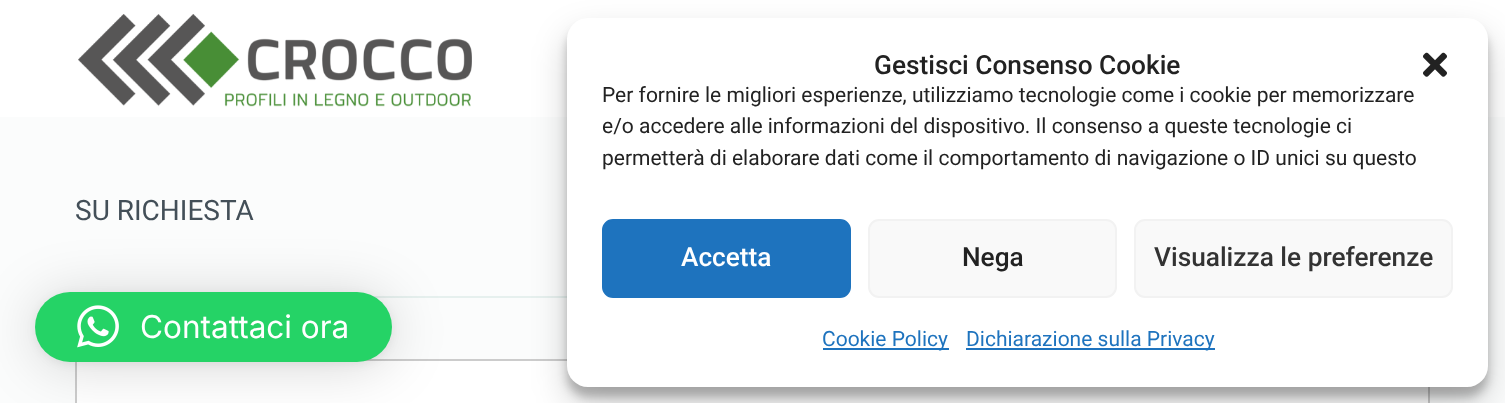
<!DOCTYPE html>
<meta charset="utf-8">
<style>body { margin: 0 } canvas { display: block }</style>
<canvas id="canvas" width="1505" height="403"></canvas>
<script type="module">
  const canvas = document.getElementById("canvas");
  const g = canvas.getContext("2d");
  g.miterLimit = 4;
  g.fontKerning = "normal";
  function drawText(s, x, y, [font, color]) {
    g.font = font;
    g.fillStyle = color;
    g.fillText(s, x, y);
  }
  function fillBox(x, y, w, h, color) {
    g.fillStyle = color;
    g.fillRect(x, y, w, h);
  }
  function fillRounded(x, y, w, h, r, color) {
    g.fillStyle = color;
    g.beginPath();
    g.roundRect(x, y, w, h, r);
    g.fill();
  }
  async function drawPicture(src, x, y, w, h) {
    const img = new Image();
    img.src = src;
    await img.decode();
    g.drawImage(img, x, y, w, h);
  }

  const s1 = ["28px Roboto", "#434F58"];
  const s2 = ["31.5px Inter", "#FFFFFF"];
  const s3 = ["500 26.25px Roboto", "#222222"];
  const s4 = ["21px Roboto", "#222222"];
  const s5 = ["500 26.25px Roboto", "#FFFFFF"];
  const s6 = ["500 26.25px Roboto", "#333333"];
  const s7 = ["21px Roboto", "#1E73BE"];

  fillBox(0, 0, 1505, 403, "#FBFCFC");
  fillBox(0, 0, 1505, 117, "#FFFFFF");
  await drawPicture("pic1.png", 78, 14, 394, 93);
  drawText("SU RICHIESTA", 75, 220, s1);
  fillBox(373, 296, 194, 2, "#E6F0EE");
  g.strokeStyle = "#CCCCCC";
  g.lineWidth = 2;
  g.strokeRect(76, 360, 1353, 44);
  fillBox(77, 361, 1351, 42, "#FFFFFF");
  g.fillStyle = "rgba(0, 0, 0, 0.16)";
  g.filter = "blur(28px)";
  g.beginPath();
  g.roundRect(35, 296, 357, 70, 35);
  g.fill();
  g.filter = "none";
  g.fillStyle = "rgba(0, 0, 0, 0.06)";
  g.filter = "blur(5px)";
  g.beginPath();
  g.roundRect(35, 294, 357, 70, 35);
  g.fill();
  g.filter = "none";
  fillRounded(35, 292, 357, 70, 35, "#25D366");
  await drawPicture("pic2.png", 77, 305, 42, 43);
  drawText("Contattaci ora", 140, 338, s2);
  g.fillStyle = "rgba(0, 0, 0, 0.23)";
  g.filter = "blur(5px)";
  g.beginPath();
  g.roundRect(567, 28, 921, 369, 21);
  g.fill();
  g.filter = "none";
  g.fillStyle = "rgba(0, 0, 0, 0.19)";
  g.filter = "blur(17.5px)";
  g.beginPath();
  g.roundRect(567, 35, 921, 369, 21);
  g.fill();
  g.filter = "none";
  fillRounded(567, 18, 921, 369, 21, "#FFFFFF");
  drawText("Gestisci Consenso Cookie", 874, 74, s3);
  await drawPicture("pic3.png", 1423, 52, 24, 25);
  drawText("Per fornire le migliori esperienze, utilizziamo tecnologie come i cookie per memorizzare", 602, 102, s4);
  drawText("e/o accedere alle informazioni del dispositivo. Il consenso a queste tecnologie ci", 602, 133, s4);
  drawText("permetterà di elaborare dati come il comportamento di navigazione o ID unici su questo", 602, 165, s4);
  g.fillStyle = "#1E73BE";
  g.beginPath();
  g.roundRect(603, 220, 247, 77, 10);
  g.fill();
  g.strokeStyle = "#1E73BE";
  g.stroke();
  drawText("Accetta", 681, 266, s5);
  g.fillStyle = "#F9F9F9";
  g.beginPath();
  g.roundRect(869, 220, 247, 77, 10);
  g.fill();
  g.strokeStyle = "#F2F2F2";
  g.stroke();
  drawText("Nega", 962, 266, s3);
  g.fillStyle = "#F9F9F9";
  g.beginPath();
  g.roundRect(1135, 220, 317, 77, 10);
  g.fill();
  g.stroke();
  drawText("Visualizza le preferenze", 1154, 266, s6);
  fillBox(823, 348, 126, 2, "#1E73BE");
  drawText("Cookie Policy", 822, 346, s7);
  fillBox(966, 348, 249, 2, "#1E73BE");
  drawText("Dichiarazione sulla Privacy", 966, 346, s7);
</script>
